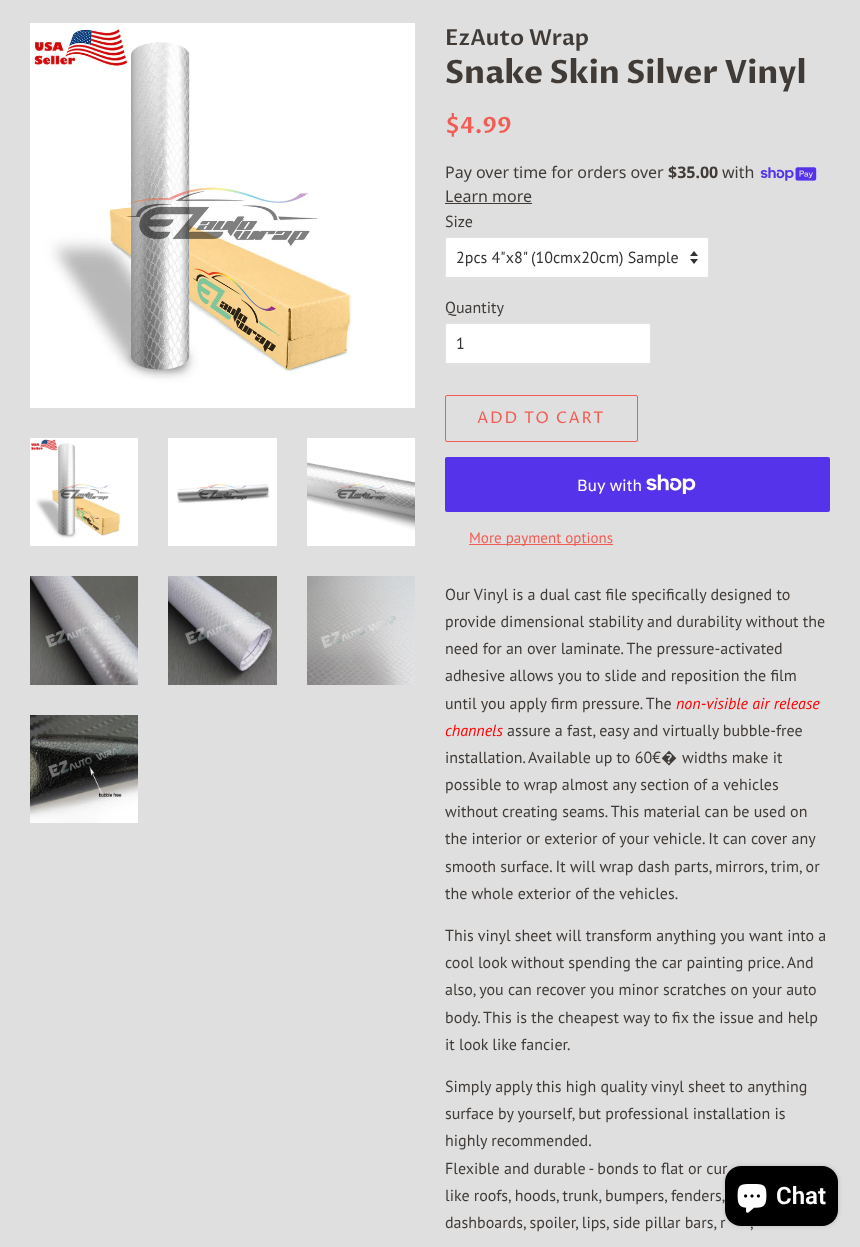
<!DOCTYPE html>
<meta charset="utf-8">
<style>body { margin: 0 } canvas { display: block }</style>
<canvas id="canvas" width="860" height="1247"></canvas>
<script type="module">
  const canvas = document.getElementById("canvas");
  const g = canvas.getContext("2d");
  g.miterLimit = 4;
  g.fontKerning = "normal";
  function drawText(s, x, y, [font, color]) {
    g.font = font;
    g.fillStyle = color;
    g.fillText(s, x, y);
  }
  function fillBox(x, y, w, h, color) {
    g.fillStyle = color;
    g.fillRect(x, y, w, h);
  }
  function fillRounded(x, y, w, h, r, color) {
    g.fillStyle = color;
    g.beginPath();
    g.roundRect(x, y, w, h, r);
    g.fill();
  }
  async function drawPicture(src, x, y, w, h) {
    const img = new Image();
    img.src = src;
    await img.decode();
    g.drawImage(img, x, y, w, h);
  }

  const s1 = ["600 22px Proza Libre", "#403B37"];
  const s2 = ["bold 32px Proza Libre", "#403B37"];
  const s3 = ["600 22.5px Proza Libre", "#F25C54"];
  const s4 = ["16px Noto Sans", "#403B37"];
  const s5 = ["bold 16px Noto Sans", "#403B37"];
  const s6 = ["16px PT Sans", "#403B37"];
  const s7 = ["16px PT Sans", "#333333"];
  const s8 = ["16px Proza Libre", "#F25C54"];
  const s9 = ["16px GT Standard", "#FFFFFF"];
  const s10 = ["15px PT Sans", "#F25C54"];
  const s11 = ["italic 16px PT Sans", "#FF0000"];
  const s12 = ["600 24px Roboto", "#FFFFFF"];

  fillBox(0, 0, 860, 1247, "#DFDFDF");
  await drawPicture("pic1.png", 30, 23, 385, 385);
  await drawPicture("pic2.png", 30, 438, 108, 108);
  await drawPicture("pic3.png", 168, 438, 109, 108);
  await drawPicture("pic4.png", 307, 438, 108, 108);
  await drawPicture("pic5.png", 30, 576, 108, 109);
  await drawPicture("pic6.png", 168, 576, 109, 109);
  await drawPicture("pic7.png", 307, 576, 108, 109);
  await drawPicture("pic8.png", 30, 715, 108, 108);
  drawText("EzAuto Wrap", 445, 45, s1);
  drawText("Snake Skin Silver Vinyl", 445, 83, s2);
  drawText("$4.99", 445, 133, s3);
  drawText("Pay over time for orders over", 445, 178, s4);
  drawText("$35.00", 668, 178, s5);
  drawText("with", 722, 178, s4);
  await drawPicture("pic9.png", 760, 167, 57, 14);
  drawText("Learn more", 445, 202, s4);
  fillBox(445, 203, 87, 1, "#403B37");
  drawText("Size", 445, 227, s6);
  fillRounded(445, 237, 264, 41, 2, "#FFFFFF");
  await drawPicture("pic10.png", 690, 251, 8, 13);
  g.beginPath();
  g.roundRect(445.5, 237.5, 263, 40, 1.5);
  g.strokeStyle = "rgba(64, 59, 55, 0.15)";
  g.stroke();
  drawText("2pcs 4\"x8\" (10cmx20cm) Sample", 456, 263, s7);
  drawText("Quantity", 445, 313, s6);
  fillRounded(445, 323, 206, 41, 2, "#FFFFFF");
  g.beginPath();
  g.roundRect(445.5, 323.5, 205, 40, 1.5);
  g.stroke();
  drawText("1", 456, 349, s7);
  g.beginPath();
  g.roundRect(445.5, 395.5, 192, 46, 1.5);
  g.strokeStyle = "#F25C54";
  g.stroke();
  g.letterSpacing = "1.6px";
  drawText("ADD TO CART", 477, 423, s8);
  fillRounded(445, 457, 385, 55, 2, "#5433EB");
  g.letterSpacing = "0px";
  drawText("Buy with", 577, 491, s9);
  await drawPicture("pic11.png", 646, 474, 50, 20);
  fillBox(469, 544, 144, 1, "#F25C54");
  drawText("More payment options", 469, 543, s10);
  drawText("Our Vinyl is a dual cast file specifically designed to", 445, 600, s6);
  drawText("provide dimensional stability and durability without the", 445, 627, s6);
  drawText("need for an over laminate. The pressure-activated", 445, 654, s6);
  drawText("adhesive allows you to slide and reposition the film", 445, 681, s6);
  drawText("until you apply firm pressure. The", 445, 709, s6);
  drawText("non-visible air release", 676, 709, s11);
  drawText("channels", 445, 736, s11);
  drawText("assure a fast, easy and virtually bubble-free", 507, 736, s6);
  drawText("installation.", 445, 763, s6);
  drawText("Available up to 60€", 528, 763, s6);
  drawText("�", 661, 763, s4);
  drawText("widths make it", 682, 763, s6);
  drawText("possible to wrap almost any section of a vehicles", 445, 790, s6);
  drawText("without creating seams. This material can be used on", 445, 817, s6);
  drawText("the interior or exterior of your vehicle. It can cover any", 445, 844, s6);
  drawText("smooth surface. It will wrap dash parts, mirrors, trim, or", 445, 872, s6);
  drawText("the whole exterior of the vehicles.", 445, 899, s6);
  drawText("This vinyl sheet will transform anything you want into a", 445, 941, s6);
  drawText("cool look without spending the car painting price. And", 445, 968, s6);
  drawText("also, you can recover you minor scratches on your auto", 445, 995, s6);
  drawText("body. This is the cheapest way to fix the issue and help", 445, 1023, s6);
  drawText("it look like fancier.", 445, 1050, s6);
  drawText("Simply apply this high quality vinyl sheet to anything", 445, 1092, s6);
  drawText("surface by yourself, but professional installation is", 445, 1119, s6);
  drawText("highly recommended.", 445, 1146, s6);
  drawText("Flexible and durable - bonds to flat or cur", 445, 1174, s6);
  drawText("like roofs, hoods, trunk, bumpers, fenders,", 445, 1201, s6);
  drawText("dashboards, spoiler, lips, side pillar bars, r", 445, 1228, s6);
  drawText(",", 750, 1228, s6);
  g.fillStyle = "rgba(0, 0, 0, 0.15)";
  g.filter = "blur(2.5px)";
  g.beginPath();
  g.roundRect(725, 1166, 113, 60, 16);
  g.fill();
  g.filter = "none";
  fillRounded(725, 1166, 113, 60, 16, "#000000");
  await drawPicture("pic12.png", 737, 1184, 30, 29);
  drawText("Chat", 776, 1204, s12);
</script>
